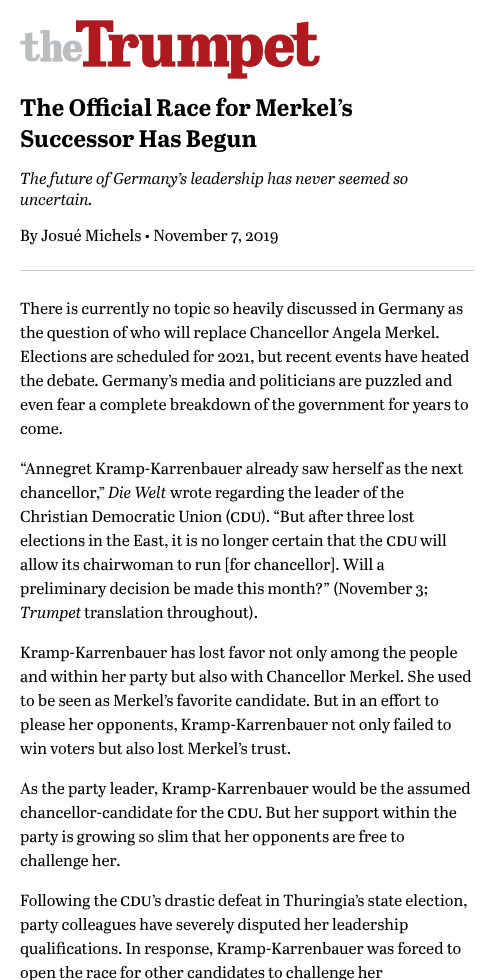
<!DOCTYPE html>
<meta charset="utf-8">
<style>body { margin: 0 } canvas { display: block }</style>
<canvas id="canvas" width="494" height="980"></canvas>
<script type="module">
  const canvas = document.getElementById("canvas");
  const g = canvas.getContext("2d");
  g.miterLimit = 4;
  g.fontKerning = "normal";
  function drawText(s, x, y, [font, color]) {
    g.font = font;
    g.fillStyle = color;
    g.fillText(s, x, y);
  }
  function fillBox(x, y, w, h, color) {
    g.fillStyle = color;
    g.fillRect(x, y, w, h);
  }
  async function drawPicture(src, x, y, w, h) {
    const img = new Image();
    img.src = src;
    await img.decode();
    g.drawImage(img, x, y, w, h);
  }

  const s1 = ["bold 24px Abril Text", "#000000"];
  const s2 = ["italic 16px Abril Text", "#000000"];
  const s3 = ["16px Abril Text", "#000000"];
  const s4 = ["18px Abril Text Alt", "#000000"];

  fillBox(0, 0, 494, 980, "#FFFFFF");
  await drawPicture("pic1.png", 20, 20, 300, 59);
  drawText("The Official Race for Merkel’s", 20, 116, s1);
  drawText("Successor Has Begun", 20, 147, s1);
  drawText("The future of Germany’s leadership has never seemed so", 20, 184, s2);
  drawText("uncertain.", 20, 205, s2);
  drawText("By Josué Michels • November 7, 2019", 20, 241, s3);
  fillBox(20, 270, 454, 1, "#CCCCCC");
  drawText("There is currently no topic so heavily discussed in Germany as", 20, 314, s3);
  drawText("the question of who will replace Chancellor Angela Merkel.", 20, 338, s3);
  drawText("Elections are scheduled for 2021, but recent events have heated", 20, 362, s3);
  drawText("the debate. Germany’s media and politicians are puzzled and", 20, 386, s3);
  drawText("even fear a complete breakdown of the government for years to", 20, 410, s3);
  drawText("come.", 20, 434, s3);
  drawText("“Annegret Kramp-Karrenbauer already saw herself as the next", 20, 474, s3);
  drawText("chancellor", 20, 498, s3);
  drawText(",”", 96, 498, s3);
  drawText("Die Welt", 108, 498, s2);
  drawText("wrote regarding the leader of the", 170, 498, s3);
  drawText("Christian Democratic Union (", 20, 522, s3);
  drawText("cdu", 230, 522, s4);
  drawText("). “But after three lost", 261, 522, s3);
  drawText("elections in the East, it is no longer certain that the", 20, 546, s3);
  drawText("cdu", 386, 546, s4);
  drawText("will", 420, 546, s3);
  drawText("allow its chairwoman to run [for chancellor]. Will a", 20, 570, s3);
  drawText("preliminary decision be made this month?” (November 3;", 20, 594, s3);
  drawText("Trumpet", 20, 618, s2);
  drawText("translation throughout).", 84, 618, s3);
  drawText("Kramp-Karrenbauer has lost favor not only among the people", 20, 658, s3);
  drawText("and within her party but also with Chancellor Merkel. She used", 20, 682, s3);
  drawText("to be seen as Merkel’s favorite candidate. But in an effort to", 20, 706, s3);
  drawText("please her opponents, Kramp-Karrenbauer not only failed to", 20, 730, s3);
  drawText("win voters but also lost Merkel’s trust.", 20, 754, s3);
  drawText("As the party leader, Kramp-Karrenbauer would be the assumed", 20, 794, s3);
  drawText("chancellor-candidate for the", 20, 818, s3);
  drawText("cdu", 227, 818, s4);
  drawText(". But her support within the", 258, 818, s3);
  drawText("party is growing so slim that her opponents are free to", 20, 842, s3);
  drawText("challenge her.", 20, 866, s3);
  drawText("Following the", 20, 906, s3);
  drawText("cdu", 120, 906, s4);
  drawText("’s drastic defeat in Thuringia’s state election,", 152, 906, s3);
  drawText("party colleagues have severely disputed her leadership", 20, 930, s3);
  drawText("qualifications. In response, Kramp-Karrenbauer was forced to", 20, 954, s3);
  drawText("open the race for other candidates to challenge her", 20, 978, s3);
</script>
